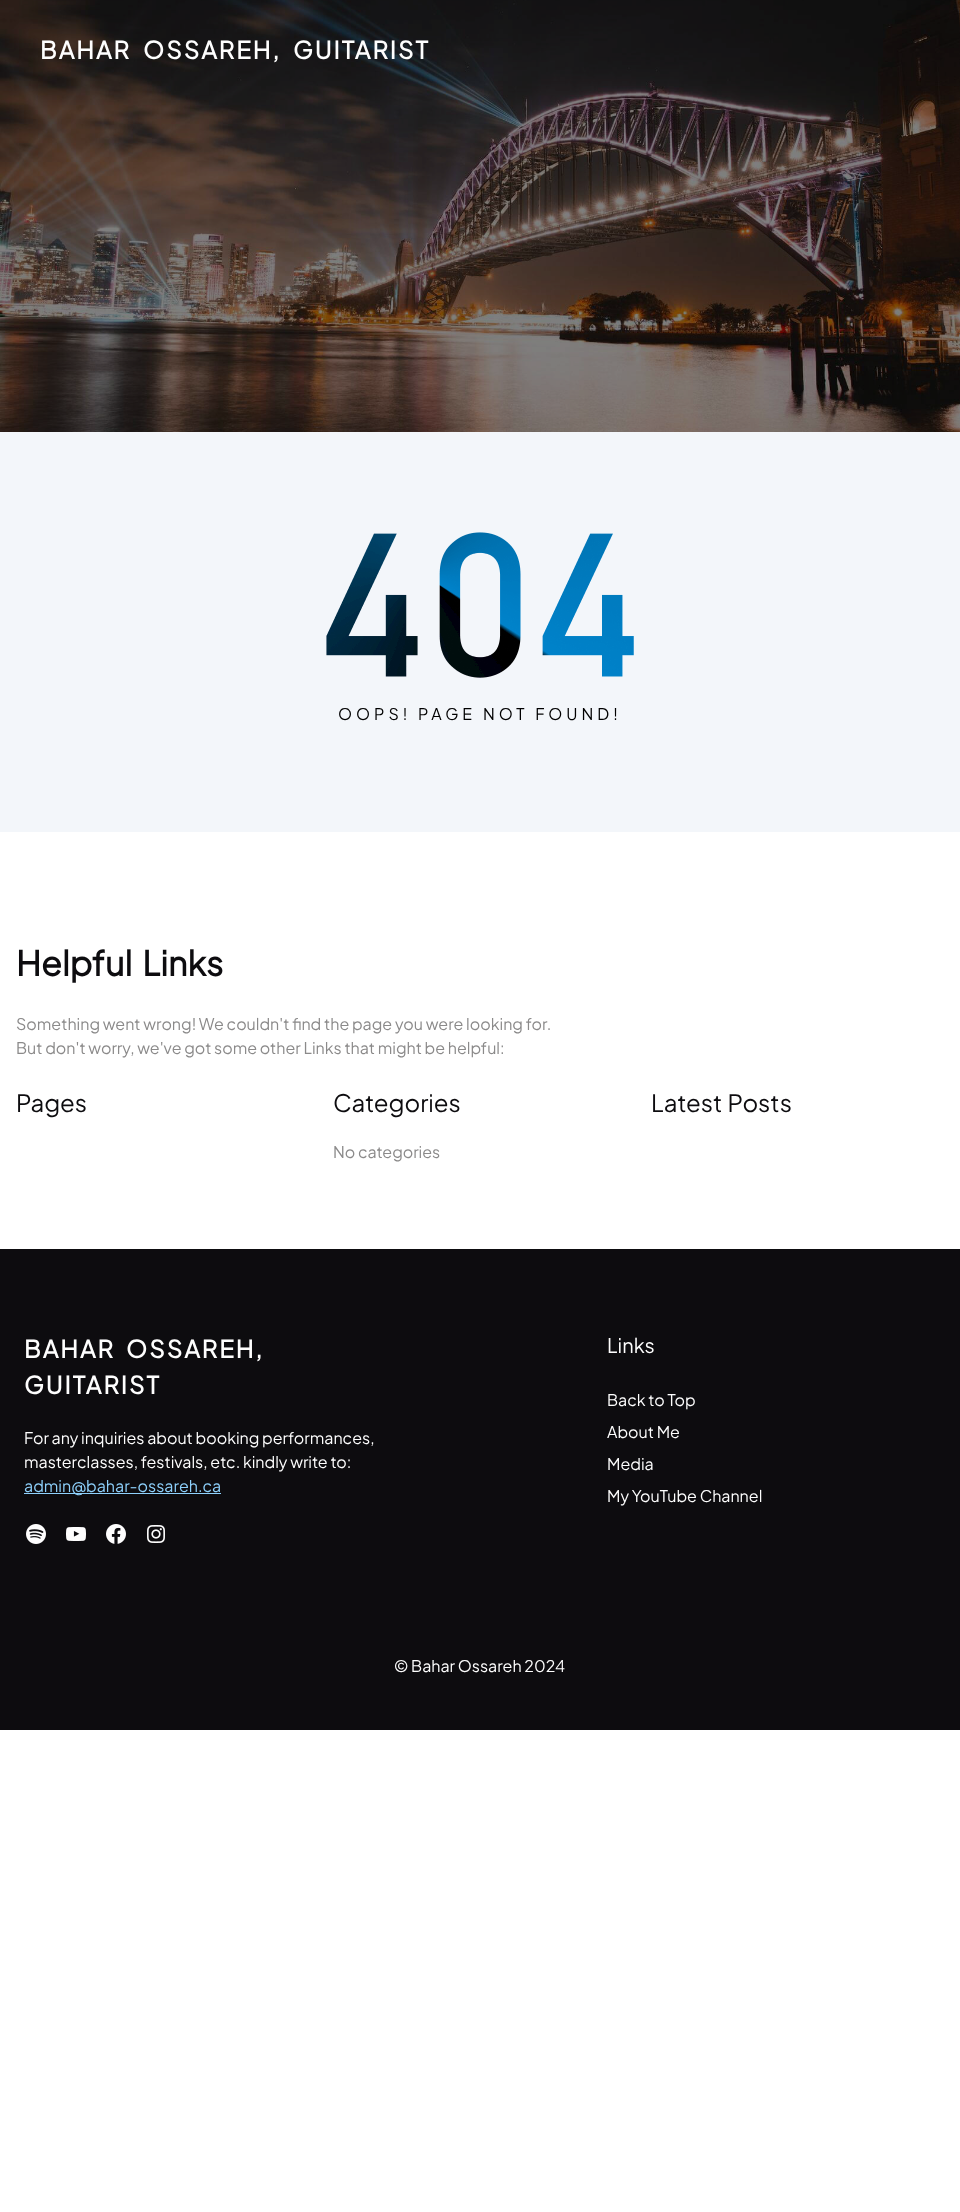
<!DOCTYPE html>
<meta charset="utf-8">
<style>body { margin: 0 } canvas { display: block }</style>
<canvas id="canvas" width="960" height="2212"></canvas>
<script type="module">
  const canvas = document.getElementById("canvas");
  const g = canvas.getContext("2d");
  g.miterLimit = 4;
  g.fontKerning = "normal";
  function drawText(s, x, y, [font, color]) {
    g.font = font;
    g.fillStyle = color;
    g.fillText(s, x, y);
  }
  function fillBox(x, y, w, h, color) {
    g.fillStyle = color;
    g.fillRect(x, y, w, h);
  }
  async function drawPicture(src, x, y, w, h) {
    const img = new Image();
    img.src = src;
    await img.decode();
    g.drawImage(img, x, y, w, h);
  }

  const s1 = ["bold 24px Plus Jakarta Sans", "#FEFEFE"];
  const s2 = ["16px Plus Jakarta Sans", "#000000"];
  const s3 = ["bold 34px Plus Jakarta Sans", "#0D0C0F"];
  const s4 = ["16px Plus Jakarta Sans", "#8B8A8A"];
  const s5 = ["24px Plus Jakarta Sans", "#0D0C0F"];
  const s6 = ["16px Plus Jakarta Sans", "#FEFEFE"];
  const s7 = ["16px Plus Jakarta Sans", "#8ED1FC"];
  const s8 = ["20px Plus Jakarta Sans", "#FEFEFE"];

  fillBox(0, 0, 960, 2212, "#FFFFFF");
  await drawPicture("pic1.png", 0, 0, 960, 432);
  g.letterSpacing = "2px";
  g.wordSpacing = "6px";
  drawText("BAHAR OSSAREH, GUITARIST", 40, 59, s1);
  fillBox(0, 432, 960, 400, "#F3F6FA");
  await drawPicture("pic2.png", 326, 532, 308, 146);
  g.letterSpacing = "4px";
  g.wordSpacing = "0px";
  drawText("OOPS! PAGE NOT FOUND!", 338, 720, s2);
  g.letterSpacing = "0px";
  g.wordSpacing = "4px";
  drawText("Helpful Links", 16, 976, s3);
  g.wordSpacing = "0px";
  drawText("Something went wrong! We couldn't find the page you were looking for.", 16, 1030, s4);
  drawText("But don't worry, we've got some other Links that might be helpful:", 16, 1054, s4);
  drawText("Pages", 16, 1112, s5);
  drawText("Categories", 333, 1112, s5);
  drawText("No categories", 333, 1158, s4);
  g.wordSpacing = "1px";
  drawText("Latest Posts", 651, 1112, s5);
  fillBox(0, 1249, 960, 481, "#0D0C0F");
  g.letterSpacing = "2px";
  g.wordSpacing = "5px";
  drawText("BAHAR OSSAREH,", 24, 1358, s1);
  g.wordSpacing = "0px";
  drawText("GUITARIST", 24, 1394, s1);
  g.letterSpacing = "0px";
  drawText("For any inquiries about booking performances,", 24, 1444, s6);
  drawText("masterclasses, festivals, etc. kindly write to:", 24, 1468, s6);
  fillBox(24, 1493, 197, 1, "#8ED1FC");
  drawText("admin@bahar-ossareh.ca", 24, 1492, s7);
  await drawPicture("pic3.png", 26, 1524, 20, 20);
  await drawPicture("pic4.png", 66, 1527, 20, 14);
  await drawPicture("pic5.png", 106, 1524, 20, 20);
  await drawPicture("pic6.png", 147, 1525, 18, 18);
  drawText("Links", 607, 1353, s8);
  drawText("Back to Top", 607, 1406, s6);
  drawText("About Me", 607, 1438, s6);
  drawText("Media", 607, 1470, s6);
  drawText("My YouTube Channel", 607, 1502, s6);
  drawText("© Bahar Ossareh 2024", 394, 1672, s6);
</script>
